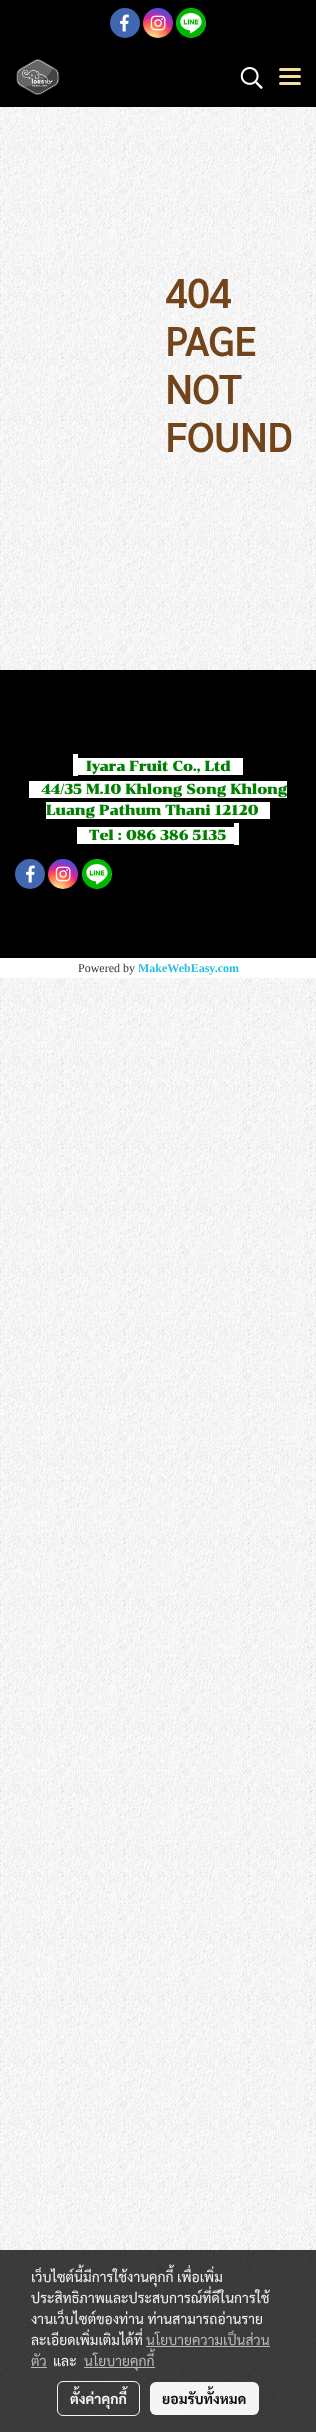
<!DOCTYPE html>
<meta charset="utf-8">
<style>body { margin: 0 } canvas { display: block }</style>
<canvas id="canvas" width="316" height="2432"></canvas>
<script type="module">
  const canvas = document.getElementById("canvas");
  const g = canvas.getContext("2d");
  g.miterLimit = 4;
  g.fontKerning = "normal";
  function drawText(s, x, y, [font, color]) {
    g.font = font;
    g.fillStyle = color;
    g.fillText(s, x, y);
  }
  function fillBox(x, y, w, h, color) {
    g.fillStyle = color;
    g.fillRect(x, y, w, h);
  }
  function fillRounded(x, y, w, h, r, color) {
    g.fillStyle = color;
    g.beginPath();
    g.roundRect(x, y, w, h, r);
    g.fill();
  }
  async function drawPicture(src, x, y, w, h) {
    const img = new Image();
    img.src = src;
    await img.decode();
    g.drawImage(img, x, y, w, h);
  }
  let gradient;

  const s1 = ["bold 40px Sarabun", "#734319"];
  const s2 = ["bold 14px Chonburi", "#008000"];
  const s3 = ["12px Liberation Serif", "#353535"];
  const s4 = ["bold 12px Liberation Serif", "#28BEE3"];
  const s5 = ["14px Sarabun", "#F5F5F5"];
  const s6 = ["14px Sarabun", "#BBBBBB"];
  const s7 = ["bold 14px 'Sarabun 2'", "#F5F5F5"];
  const s8 = ["bold 14px 'Sarabun 2'", "#0C0C0C"];

  fillBox(0, 0, 316, 2432, "#FFFFFF");
  await drawPicture("pic1.png", 0, 107, 316, 2325);
  fillBox(0, 0, 316, 107, "#000000");
  g.fillStyle = "#4267B2";
  g.beginPath();
  g.arc(125, 23, 15, 0, Math.PI * 2);
  g.fill();
  await drawPicture("pic2.png", 120, 14, 9, 18);
  gradient = g.createRadialGradient(152, 40, 0, 152, 40, 38);
  gradient.addColorStop(0, "#FDF497");
  gradient.addColorStop(0.05, "#FDF497");
  gradient.addColorStop(0.45, "#FD5949");
  gradient.addColorStop(0.6, "#D6249F");
  gradient.addColorStop(0.9, "#285AEB");
  g.fillStyle = gradient;
  g.beginPath();
  g.arc(158, 23, 15, 0, Math.PI * 2);
  g.fill();
  await drawPicture("pic3.png", 150, 15, 16, 16);
  g.fillStyle = "#00B800";
  g.beginPath();
  g.arc(191, 23, 15, 0, Math.PI * 2);
  g.fill();
  await drawPicture("pic4.png", 176, 8, 30, 30);
  await drawPicture("pic5.png", 16, 59, 44, 36);
  await drawPicture("pic6.png", 240, 67, 23, 22);
  fillRounded(279, 75, 22, 3, 1.5, "#F5DE9A");
  fillRounded(279, 68, 22, 3, 1.5, "#F5DE9A");
  fillRounded(279, 82, 22, 3, 1.5, "#F5DE9A");
  drawText("404", 165, 308, s1);
  drawText("PAGE", 165, 356, s1);
  drawText("NOT", 165, 404, s1);
  drawText("FOUND", 165, 452, s1);
  fillBox(0, 670, 316, 288, "#000000");
  fillBox(78, 758, 165, 17, "#FFFFFF");
  drawText("Iyara Fruit Co., Ltd", 86, 771, s2);
  fillBox(73, 754, 5, 22, "#FFFFFF");
  fillBox(29, 781, 258, 17, "#FFFFFF");
  drawText("44/35 M.10 Khlong Song Khlong", 41, 794, s2);
  fillBox(46, 802, 224, 17, "#FFFFFF");
  drawText("Luang Pathum Thani 12120", 46, 815, s2);
  fillBox(77, 827, 157, 17, "#FFFFFF");
  drawText("Tel : 086 386 5135", 89, 840, s2);
  fillBox(234, 823, 5, 22, "#FFFFFF");
  g.fillStyle = "#4267B2";
  g.beginPath();
  g.arc(30, 874, 15, 0, Math.PI * 2);
  g.fill();
  await drawPicture("pic2.png", 26, 865, 9, 18);
  gradient = g.createRadialGradient(57, 891, 0, 57, 891, 38);
  gradient.addColorStop(0, "#FDF497");
  gradient.addColorStop(0.05, "#FDF497");
  gradient.addColorStop(0.45, "#FD5949");
  gradient.addColorStop(0.6, "#D6249F");
  gradient.addColorStop(0.9, "#285AEB");
  g.fillStyle = gradient;
  g.beginPath();
  g.arc(63, 874, 15, 0, Math.PI * 2);
  g.fill();
  await drawPicture("pic3.png", 55, 866, 16, 16);
  g.fillStyle = "#00B800";
  g.beginPath();
  g.arc(97, 874, 15, 0, Math.PI * 2);
  g.fill();
  await drawPicture("pic4.png", 82, 859, 30, 30);
  fillBox(0, 958, 316, 20, "#FFFFFF");
  drawText("Powered by", 78, 972, s3);
  drawText("MakeWebEasy.com", 138, 972, s4);
  fillBox(0, 2250, 316, 182, "rgba(0, 0, 0, 0.76)");
  drawText("เว็บไซต์นี้มีการใช้งานคุกกี้ เพื่อเพิ่ม", 31, 2282, s5);
  drawText("ประสิทธิภาพและประสบการณ์ที่ดีในการใช้", 31, 2303, s5);
  drawText("งานเว็บไซต์ของท่าน ท่านสามารถอ่านราย", 31, 2324, s5);
  drawText("ละเอียดเพิ่มเติมได้ที่", 31, 2345, s5);
  drawText("นโยบายความเป็นส่วน", 146, 2345, s6);
  fillBox(146, 2346, 124, 1, "rgba(194, 194, 194, 0.95)");
  drawText("ตัว", 31, 2366, s6);
  fillBox(31, 2367, 16, 1, "rgba(194, 194, 194, 0.95)");
  drawText("และ", 53, 2366, s5);
  fillBox(84, 2367, 71, 1, "rgba(194, 194, 194, 0.95)");
  drawText("นโยบายคุกกี้", 84, 2366, s6);
  g.beginPath();
  g.roundRect(57.5, 2381.5, 82, 34, 5.5);
  g.strokeStyle = "rgba(255, 255, 255, 0.95)";
  g.stroke();
  drawText("ตั้งค่าคุกกี้", 70, 2404, s7);
  fillRounded(150, 2382, 109, 33, 6, "rgba(255, 255, 255, 0.95)");
  drawText("ยอมรับทั้งหมด", 162, 2404, s8);
</script>
